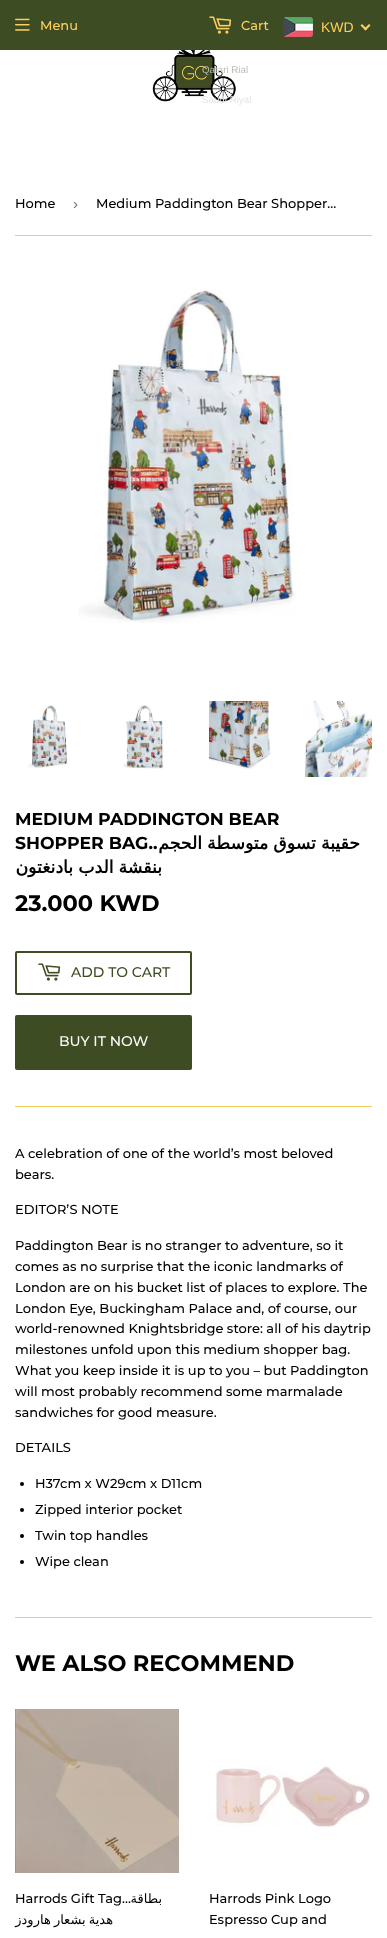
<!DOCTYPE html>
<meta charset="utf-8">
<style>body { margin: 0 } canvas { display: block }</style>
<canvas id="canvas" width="387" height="1938"></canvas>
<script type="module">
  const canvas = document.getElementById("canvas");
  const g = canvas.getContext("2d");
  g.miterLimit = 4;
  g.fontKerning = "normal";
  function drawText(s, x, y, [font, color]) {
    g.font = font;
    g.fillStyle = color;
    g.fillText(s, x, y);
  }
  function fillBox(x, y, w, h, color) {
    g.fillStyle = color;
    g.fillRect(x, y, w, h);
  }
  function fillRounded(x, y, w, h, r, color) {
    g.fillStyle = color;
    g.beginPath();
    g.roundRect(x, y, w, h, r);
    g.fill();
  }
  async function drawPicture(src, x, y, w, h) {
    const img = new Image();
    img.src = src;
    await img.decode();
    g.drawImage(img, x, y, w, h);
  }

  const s1 = ["500 13px Montserrat", "#FECF5C"];
  const s2 = ["14px Liberation Sans", "#FECF5C"];
  const s3 = ["9.75px Liberation Sans", "#BBBDB2"];
  const s4 = ["9.75px Liberation Sans", "#E4E4E4"];
  const s5 = ["500 13px Montserrat", "#000000"];
  const s6 = ["15px Liberation Sans", "#767676"];
  const s7 = ["bold 17.3px Montserrat", "#000000"];
  const s8 = ["bold 17.3px DejaVu Sans", "#000000"];
  const s9 = ["bold 22.5px Montserrat", "#000000"];
  const s10 = ["500 14px Montserrat", "#3E4C23"];
  const s11 = ["500 14px Montserrat", "#FFFFFF"];
  const s12 = ["13px DejaVu Sans", "#000000"];

  fillBox(0, 0, 387, 1938, "#FFFFFF");
  fillBox(0, 0, 387, 50, "#3E4C23");
  await drawPicture("pic1.png", 15, 18, 15, 13);
  drawText("Menu", 40, 30, s1);
  await drawPicture("pic2.png", 209, 16, 23, 18);
  drawText("Cart", 241, 30, s1);
  await drawPicture("pic3.png", 283, 17, 30, 20);
  drawText("KWD", 321, 32, s2);
  g.beginPath();
  g.moveTo(369, 24);
  g.lineTo(370.5, 25.5);
  g.lineTo(365.5, 30.5);
  g.lineTo(364, 29);
  g.closePath();
  g.fill();
  g.beginPath();
  g.moveTo(362, 24);
  g.lineTo(367, 29);
  g.lineTo(365.5, 30.5);
  g.lineTo(360.5, 25.5);
  g.closePath();
  g.fill();
  await drawPicture("pic4.png", 152, 50, 84, 52);
  drawText("Qatari Rial", 202, 73, s3);
  drawText("Saudi Riyal", 202, 103, s4);
  fillBox(15, 235, 357, 1, "#F3CF5C");
  drawText("Home", 15, 208, s5);
  drawText("›", 73, 209, s6);
  drawText("Medium Paddington Bear Shopper…", 96, 208, s5);
  await drawPicture("pic5.png", 78, 290, 219, 333);
  await drawPicture("pic6.png", 27, 705, 41, 64);
  await drawPicture("pic7.png", 122, 705, 42, 64);
  await drawPicture("pic8.png", 209, 701, 62, 68);
  await drawPicture("pic9.png", 305, 701, 67, 76);
  drawText("MEDIUM PADDINGTON BEAR", 15, 825, s7);
  drawText("SHOPPER BAG..", 15, 849, s7);
  g.wordSpacing = "-0.5px";
  g.direction = "rtl";
  drawText("حقيبة تسوق متوسطة الحجم", 360, 849, s8);
  drawText("بنقشة الدب بادنغتون", 162, 873, s8);
  g.wordSpacing = "0px";
  g.direction = "ltr";
  drawText("23.000 KWD", 15, 911, s9);
  g.beginPath();
  g.roundRect(16, 952, 175, 42, 1);
  g.strokeStyle = "#3E4C23";
  g.lineWidth = 2;
  g.stroke();
  await drawPicture("pic10.png", 38, 963, 23, 18);
  drawText("ADD TO CART", 71, 977, s10);
  fillRounded(15, 1015, 177, 55, 2, "#3E4C23");
  drawText("BUY IT NOW", 59, 1046, s11);
  fillBox(15, 1106, 357, 1, "#F3CF5C");
  drawText("A celebration of one of the world’s most beloved", 15, 1158, s5);
  drawText("bears.", 15, 1179, s5);
  drawText("EDITOR’S NOTE", 15, 1214, s5);
  drawText("Paddington Bear is no stranger to adventure, so it", 15, 1250, s5);
  drawText("comes as no surprise that the iconic landmarks of", 15, 1271, s5);
  drawText("London are on his bucket list of places to explore. The", 15, 1292, s5);
  drawText("London Eye, Buckingham Palace and, of course, our", 15, 1313, s5);
  drawText("world-renowned Knightsbridge store: all of his daytrip", 15, 1333, s5);
  drawText("milestones unfold upon this medium shopper bag.", 15, 1354, s5);
  drawText("What you keep inside it is up to you – but Paddington", 15, 1375, s5);
  drawText("will most probably recommend some marmalade", 15, 1396, s5);
  drawText("sandwiches for good measure.", 15, 1417, s5);
  drawText("DETAILS", 15, 1452, s5);
  g.beginPath();
  g.arc(22, 1484, 2, 0, Math.PI * 2);
  g.fill();
  drawText("H37cm x W29cm x D11cm", 35, 1488, s5);
  g.beginPath();
  g.arc(22, 1510, 2, 0, Math.PI * 2);
  g.fill();
  drawText("Zipped interior pocket", 35, 1514, s5);
  g.beginPath();
  g.arc(22, 1536, 2, 0, Math.PI * 2);
  g.fill();
  drawText("Twin top handles", 35, 1540, s5);
  g.beginPath();
  g.arc(22, 1562, 2, 0, Math.PI * 2);
  g.fill();
  drawText("Wipe clean", 35, 1566, s5);
  fillBox(15, 1617, 357, 1, "#F3CF5C");
  drawText("WE ALSO RECOMMEND", 15, 1671, s9);
  await drawPicture("pic11.png", 15, 1709, 164, 164);
  drawText("Harrods Gift Tag...", 15, 1903, s5);
  g.direction = "rtl";
  drawText("بطاقة", 162, 1903, s12);
  g.wordSpacing = "-1px";
  drawText("هدية بشعار هارودز", 113, 1924, s12);
  await drawPicture("pic12.png", 216, 1766, 156, 61);
  g.wordSpacing = "0px";
  g.direction = "ltr";
  drawText("Harrods Pink Logo", 209, 1903, s5);
  drawText("Espresso Cup and", 209, 1924, s5);
</script>
